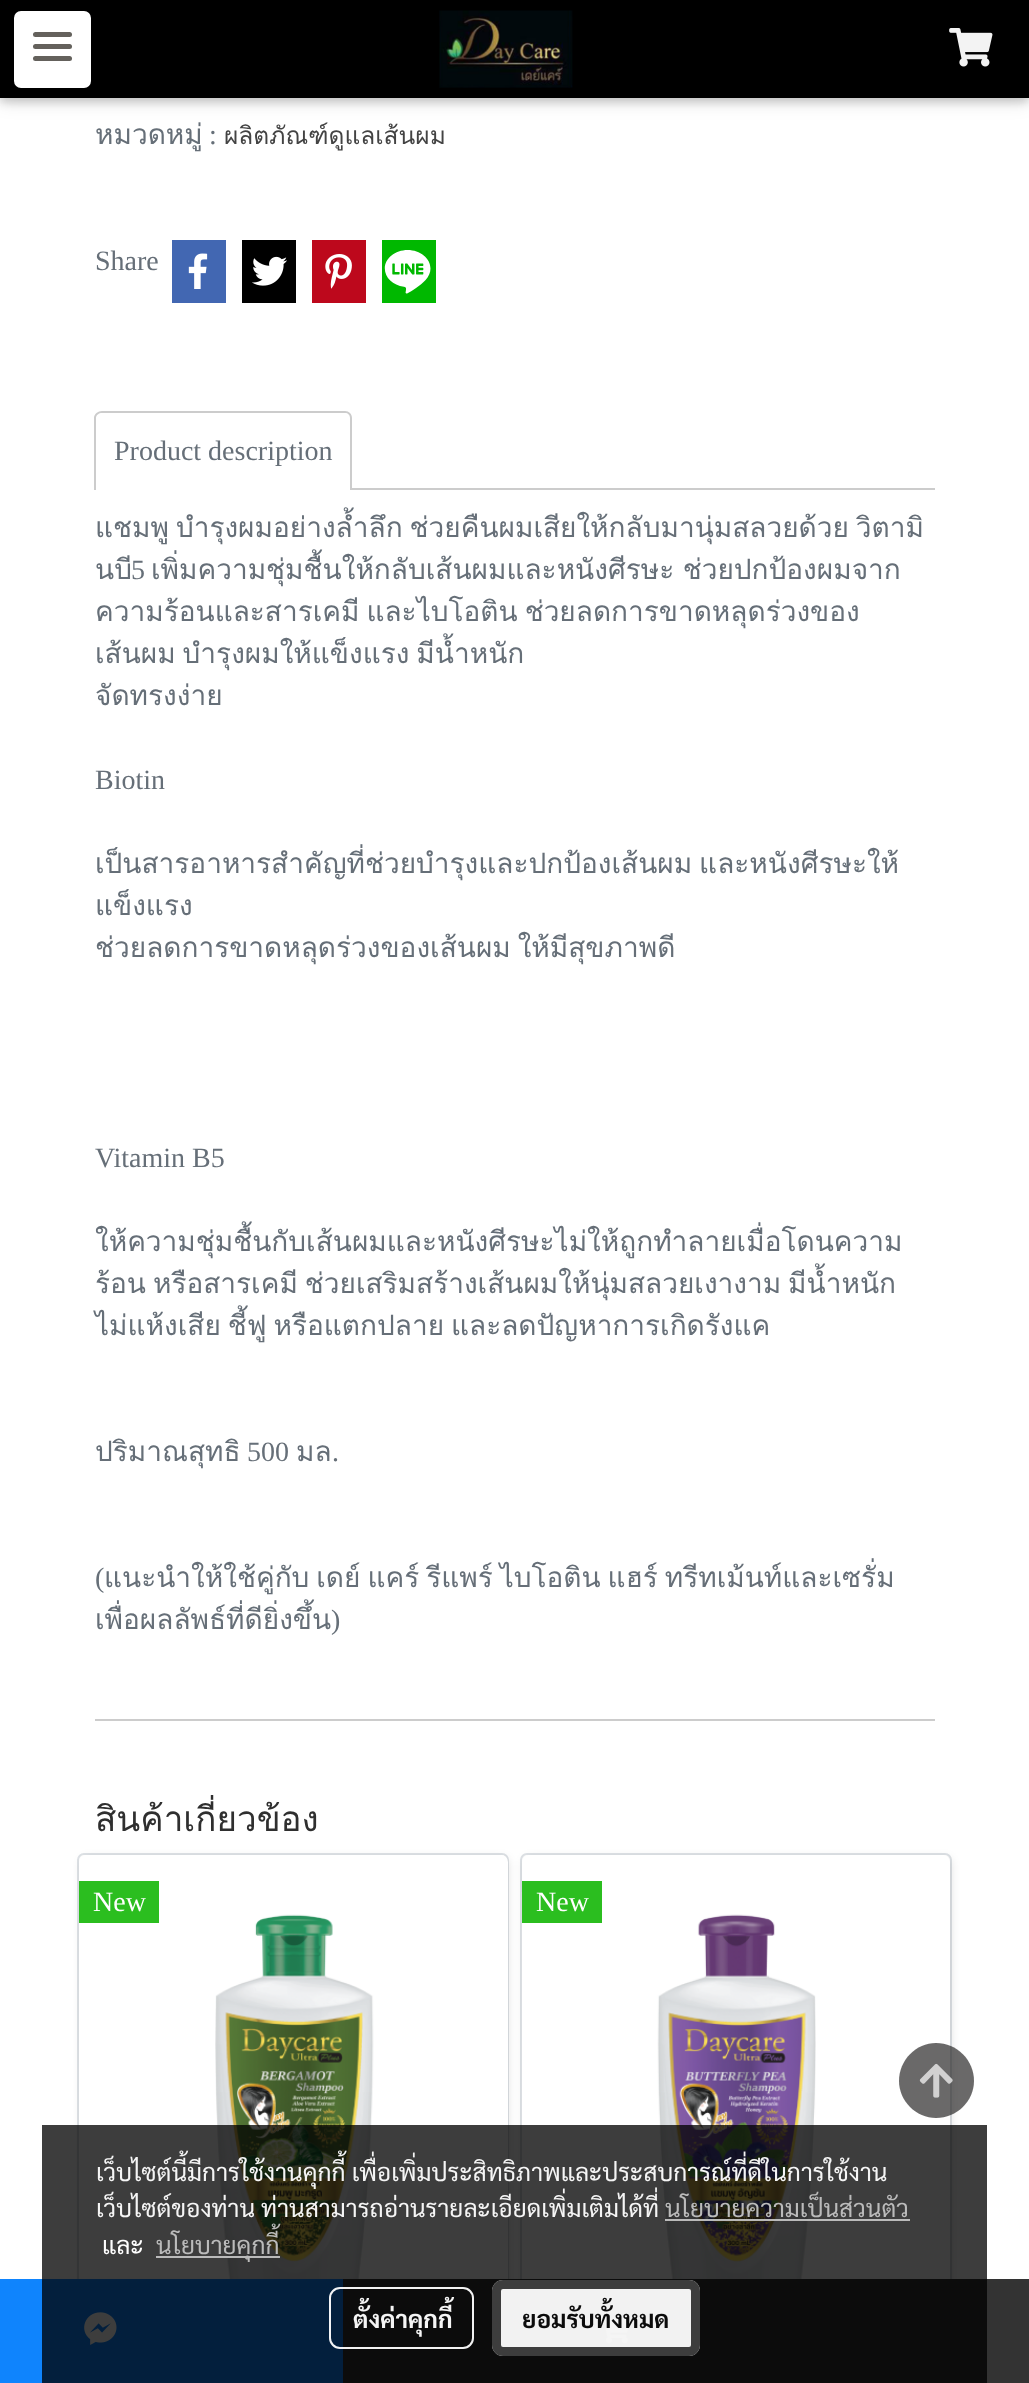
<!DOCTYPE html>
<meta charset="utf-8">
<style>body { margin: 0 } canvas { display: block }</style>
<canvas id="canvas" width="1029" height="2383"></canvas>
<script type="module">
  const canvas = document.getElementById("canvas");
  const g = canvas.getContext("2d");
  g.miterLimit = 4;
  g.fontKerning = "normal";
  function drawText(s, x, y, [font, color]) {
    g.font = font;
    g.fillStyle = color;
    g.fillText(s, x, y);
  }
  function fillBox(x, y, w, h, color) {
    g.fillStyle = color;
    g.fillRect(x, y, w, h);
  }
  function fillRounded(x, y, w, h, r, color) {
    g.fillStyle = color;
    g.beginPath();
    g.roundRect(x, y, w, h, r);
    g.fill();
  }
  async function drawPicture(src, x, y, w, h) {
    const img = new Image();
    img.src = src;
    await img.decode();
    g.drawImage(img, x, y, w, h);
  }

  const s1 = ["28px Loma", "#666F78"];
  const s2 = ["28px Liberation Serif", "#666F78"];
  const s3 = ["24.5px Loma", "#434343"];
  const s4 = ["35px Loma", "#2F2F2F"];
  const s5 = ["28px Liberation Serif", "#FFFFFF"];
  const s6 = ["24.5px Sarabun", "#F5F5F5"];
  const s7 = ["24.5px Sarabun", "#BBBBBB"];
  const s8 = ["24.5px Sarabun", "#FFFFFF"];
  const s9 = ["bold 24.5px Sarabun", "#F5F5F5"];
  const s10 = ["bold 24.5px Sarabun", "#0C0C0C"];

  fillBox(0, 0, 1029, 2383, "#FFFFFF");
  g.fillStyle = "rgba(0, 0, 0, 0.12)";
  g.filter = "blur(9px)";
  g.beginPath();
  g.rect(0, 4, 1029, 98);
  g.fill();
  g.filter = "none";
  g.fillStyle = "rgba(0, 0, 0, 0.16)";
  g.filter = "blur(4.5px)";
  g.beginPath();
  g.rect(0, 4, 1029, 98);
  g.fill();
  g.filter = "none";
  fillBox(0, 0, 1029, 98, "#000000");
  g.fillStyle = "#FFFFFF";
  g.beginPath();
  g.roundRect(15, 12, 75, 75, 6);
  g.fill();
  g.strokeStyle = "#FFFFFF";
  g.lineWidth = 2;
  g.stroke();
  fillRounded(33, 44, 39, 5, 2.5, "#64615C");
  fillRounded(33, 32, 39, 5, 2.5, "#64615C");
  fillRounded(33, 56, 39, 5, 2.5, "#64615C");
  await drawPicture("pic1.png", 439, 10, 134, 78);
  await drawPicture("pic2.png", 949, 28, 44, 39);
  drawText("หมวดหมู่", 95, 144, s1);
  drawText(":", 209, 144, s2);
  drawText("ผลิตภัณฑ์ดูแลเส้นผม", 224, 144, s3);
  drawText("Share", 95, 270, s2);
  fillBox(172, 240, 54, 63, "#4267B2");
  await drawPicture("pic3.png", 188, 253, 20, 36);
  fillBox(242, 240, 54, 63, "#000000");
  await drawPicture("pic4.png", 252, 256, 35, 30);
  fillBox(312, 240, 54, 63, "#BD081C");
  await drawPicture("pic5.png", 325, 254, 27, 35);
  fillBox(382, 240, 54, 63, "#00B800");
  await drawPicture("pic6.png", 384, 250, 47, 44);
  g.beginPath();
  g.roundRect(78, 1854, 430, 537, 6);
  g.strokeStyle = "#DEE2E6";
  g.stroke();
  g.fillStyle = "rgba(0, 0, 0, 0.1)";
  g.filter = "blur(4.5px)";
  g.beginPath();
  g.roundRect(81, 1857, 428, 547, 7);
  g.fill();
  g.filter = "none";
  g.fillStyle = "#FFFFFF";
  g.beginPath();
  g.roundRect(79, 1855, 429, 501, [7, 7, 0, 0]);
  g.fill();
  fillBox(0, 2279, 343, 104, "#0F84FD");
  await drawPicture("pic7.png", 84, 2312, 33, 33);
  g.beginPath();
  g.roundRect(521, 1854, 430, 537, 6);
  g.stroke();
  g.fillStyle = "rgba(0, 0, 0, 0.1)";
  g.filter = "blur(4.5px)";
  g.beginPath();
  g.roundRect(523, 1857, 429, 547, 7);
  g.fill();
  g.filter = "none";
  fillRounded(522, 1855, 428, 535, 7, "#FFFFFF");
  fillBox(343, 2279, 686, 104, "#333333");
  await drawPicture("pic8.png", 598, 2315, 32, 29);
  g.fillStyle = "#CCCCCC";
  g.beginPath();
  g.moveTo(102, 411);
  g.lineTo(345, 411);
  g.bezierCurveTo(349, 411, 352, 414, 352, 418);
  g.lineTo(352, 490);
  g.lineTo(94, 490);
  g.lineTo(94, 418);
  g.bezierCurveTo(94, 414, 98, 411, 102, 411);
  g.closePath();
  g.moveTo(102, 413);
  g.lineTo(345, 413);
  g.bezierCurveTo(348, 413, 350, 415, 350, 418);
  g.lineTo(350, 490);
  g.lineTo(96, 490);
  g.lineTo(96, 418);
  g.bezierCurveTo(96, 415, 99, 413, 102, 413);
  g.closePath();
  g.fill("evenodd");
  drawText("Product description", 114, 460, s2);
  fillBox(352, 488, 583, 2, "#CCCCCC");
  g.wordSpacing = "-2.5px";
  drawText("แชมพู บำรุงผมอย่างล้ำลึก ช่วยคืนผมเสียให้กลับมานุ่มสลวยด้วย วิตามิ", 95, 537, s1);
  g.wordSpacing = "0px";
  drawText("นบี", 95, 579, s1);
  drawText("5", 131, 579, s2);
  g.wordSpacing = "-1px";
  drawText("เพิ่มความชุ่มชื้นให้กลับเส้นผมและหนังศีรษะ ช่วยปกป้องผมจาก", 151, 579, s1);
  g.wordSpacing = "-2.5px";
  drawText("ความร้อนและสารเคมี และไบโอติน ช่วยลดการขาดหลุดร่วงของ", 95, 621, s1);
  drawText("เส้นผม บำรุงผมให้แข็งแรง มีน้ำหนัก", 95, 663, s1);
  g.wordSpacing = "0px";
  drawText("จัดทรงง่าย", 95, 705, s1);
  drawText("Biotin", 95, 789, s2);
  g.wordSpacing = "-2.5px";
  drawText("เป็นสารอาหารสำคัญที่ช่วยบำรุงและปกป้องเส้นผม และหนังศีรษะให้", 95, 873, s1);
  g.wordSpacing = "0px";
  drawText("แข็งแรง", 95, 915, s1);
  g.wordSpacing = "-2.5px";
  drawText("ช่วยลดการขาดหลุดร่วงของเส้นผม ให้มีสุขภาพดี", 95, 957, s1);
  g.wordSpacing = "0px";
  drawText("Vitamin B5", 95, 1167, s2);
  drawText("ให้ความชุ่มชื้นกับเส้นผมและหนังศีรษะไม่ให้ถูกทำลายเมื่อโดนความ", 95, 1251, s1);
  g.wordSpacing = "-2.5px";
  drawText("ร้อน หรือสารเคมี ช่วยเสริมสร้างเส้นผมให้นุ่มสลวยเงางาม มีน้ำหนัก", 95, 1293, s1);
  drawText("ไม่แห้งเสีย ชี้ฟู หรือแตกปลาย และลดปัญหาการเกิดรังแค", 95, 1335, s1);
  g.wordSpacing = "0px";
  drawText("ปริมาณสุทธิ", 95, 1461, s1);
  drawText("500", 247, 1461, s2);
  drawText("มล", 296, 1461, s1);
  drawText(".", 332, 1461, s2);
  drawText("(", 95, 1587, s2);
  g.wordSpacing = "-2.5px";
  drawText("แนะนำให้ใช้คู่กับ เดย์ แคร์ รีแพร์ ไบโอติน แฮร์ ทรีทเม้นท์และเซรั่ม", 104, 1587, s1);
  g.wordSpacing = "0px";
  drawText("เพื่อผลลัพธ์ที่ดียิ่งขึ้น", 95, 1629, s1);
  drawText(")", 331, 1629, s2);
  fillBox(95, 1719, 840, 2, "#CCCCCC");
  drawText("สินค้าเกี่ยวข้อง", 95, 1831, s4);
  await drawPicture("pic9.png", 215, 1914, 159, 365);
  fillBox(79, 1881, 80, 42, "#2BBE1F");
  drawText("New", 93, 1911, s5);
  await drawPicture("pic10.png", 521, 1892, 295, 387);
  fillBox(522, 1881, 80, 42, "#2BBE1F");
  drawText("New", 536, 1911, s5);
  g.fillStyle = "rgba(43, 42, 42, 0.7)";
  g.beginPath();
  g.moveTo(936, 2043);
  g.bezierCurveTo(916, 2043, 899, 2060, 899, 2081);
  g.bezierCurveTo(899, 2101, 916, 2118, 936, 2118);
  g.bezierCurveTo(957, 2118, 974, 2101, 974, 2081);
  g.bezierCurveTo(974, 2060, 957, 2043, 936, 2043);
  g.closePath();
  g.fill();
  await drawPicture("pic11.png", 919, 2063, 34, 35);
  fillBox(42, 2125, 945, 258, "rgba(0, 0, 0, 0.76)");
  drawText("เว็บไซต์นี้มีการใช้งานคุกกี้ เพื่อเพิ่มประสิทธิภาพและประสบการณ์ที่ดีในการใช้งาน", 96, 2181, s6);
  drawText("เว็บไซต์ของท่าน ท่านสามารถอ่านรายละเอียดเพิ่มเติมได้ที่", 96, 2217, s6);
  drawText("นโยบายความเป็นส่วนตัว", 665, 2217, s7);
  fillBox(665, 2219, 245, 2, "rgba(194, 194, 194, 0.95)");
  drawText("และ", 102, 2254, s8);
  fillBox(156, 2256, 124, 2, "rgba(194, 194, 194, 0.95)");
  drawText("นโยบายคุกกี้", 156, 2254, s7);
  g.beginPath();
  g.roundRect(330, 2288, 143, 60, 10);
  g.strokeStyle = "rgba(255, 255, 255, 0.95)";
  g.stroke();
  drawText("ตั้งค่าคุกกี้", 353, 2328, s9);
  fillRounded(492, 2280, 208, 76, 11, "rgba(255, 255, 255, 0.95)");
  g.beginPath();
  g.roundRect(496.5, 2284.5, 199, 67, 6.5);
  g.strokeStyle = "rgba(51, 51, 51, 0.95)";
  g.lineWidth = 9;
  g.stroke();
  drawText("ยอมรับทั้งหมด", 522, 2328, s10);
</script>
